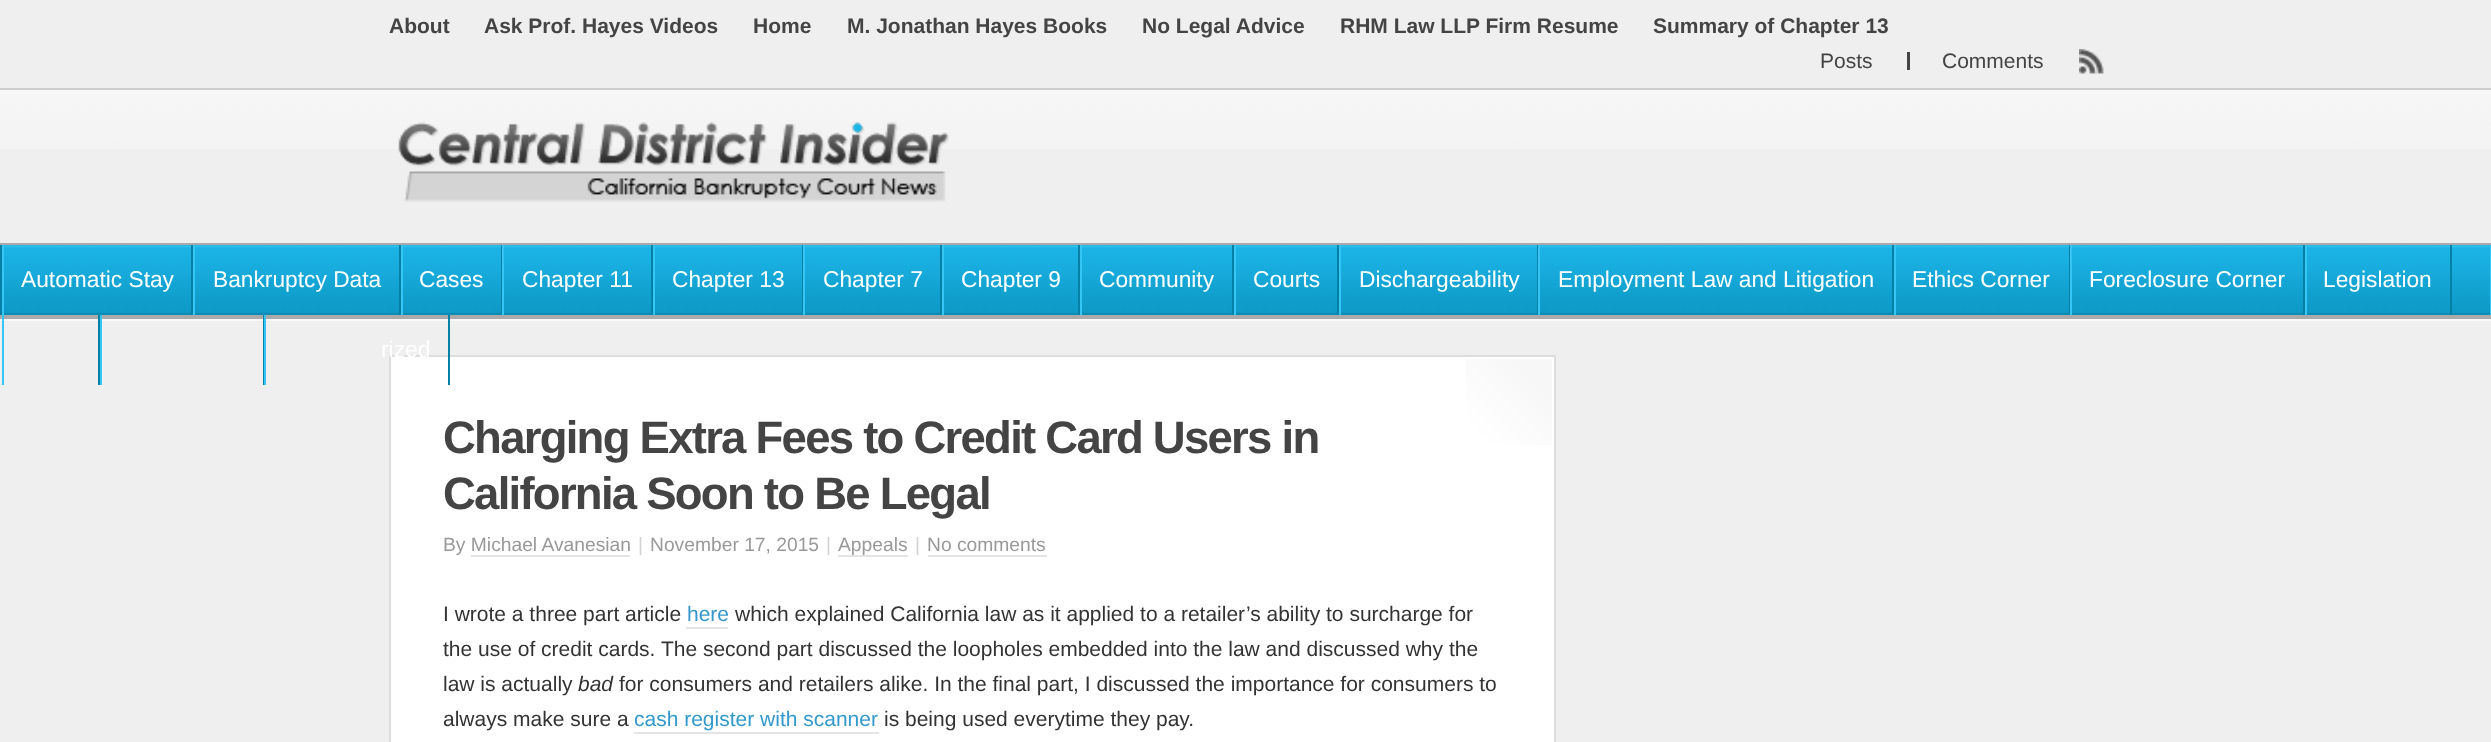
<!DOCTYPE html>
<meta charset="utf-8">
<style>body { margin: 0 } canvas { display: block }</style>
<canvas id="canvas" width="2491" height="742"></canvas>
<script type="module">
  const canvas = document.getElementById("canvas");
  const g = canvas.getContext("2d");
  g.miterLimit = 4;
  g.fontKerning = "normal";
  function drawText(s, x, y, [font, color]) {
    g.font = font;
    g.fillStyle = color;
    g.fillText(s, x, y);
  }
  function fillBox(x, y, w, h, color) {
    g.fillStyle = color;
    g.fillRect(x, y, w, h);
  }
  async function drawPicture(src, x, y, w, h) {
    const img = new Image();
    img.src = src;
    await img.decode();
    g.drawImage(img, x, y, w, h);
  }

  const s1 = ["bold 21px Liberation Sans", "#444444"];
  const s2 = ["21px Liberation Sans", "#444444"];
  const s3 = ["22.75px Liberation Sans", "#FFFFFF"];
  const s4 = ["bold 45.5px Liberation Sans", "#444444"];
  const s5 = ["19.25px Liberation Sans", "#999999"];
  const s6 = ["19.25px Liberation Sans", "#D2D2D2"];
  const s7 = ["21px Liberation Sans", "#333333"];
  const s8 = ["21px Liberation Sans", "#3399CC"];
  const s9 = ["italic 21px Liberation Sans", "#333333"];

  fillBox(0, 0, 2491, 742, "#EFEFEF");
  await drawPicture("pic1.png", 0, 90, 2491, 59);
  fillBox(0, 88, 2491, 2, "#CDCDCD");
  drawText("About", 389, 33, s1);
  drawText("Ask Prof. Hayes Videos", 484, 33, s1);
  drawText("Home", 753, 33, s1);
  drawText("M. Jonathan Hayes Books", 847, 33, s1);
  drawText("No Legal Advice", 1142, 33, s1);
  drawText("RHM Law LLP Firm Resume", 1340, 33, s1);
  drawText("Summary of Chapter 13", 1653, 33, s1);
  await drawPicture("pic2.png", 2079, 49, 25, 25);
  drawText("Posts", 1820, 68, s2);
  fillBox(1907, 52, 3, 18, "#444444");
  drawText("Comments", 1942, 68, s2);
  await drawPicture("pic3.png", 398, 122, 551, 80);
  await drawPicture("pic4.png", 4, 245, 2486, 70);
  fillBox(0, 243, 2491, 2, "#AAAAAA");
  fillBox(0, 315, 2491, 4, "#AAAAAA");
  fillBox(2490, 245, 1, 70, "#35C6F6");
  fillBox(0, 245, 2, 70, "#0580A7");
  fillBox(191, 245, 2, 70, "#0580A7");
  fillBox(0, 319, 2491, 2, "#F8F8F8");
  fillBox(2, 245, 2, 140, "#35C6F6");
  drawText("Automatic Stay", 21, 287, s3);
  fillBox(399, 245, 2, 70, "#0580A7");
  fillBox(193, 245, 2, 70, "#35C6F6");
  drawText("Bankruptcy Data", 213, 287, s3);
  fillBox(501, 245, 1, 70, "#0580A7");
  fillBox(401, 245, 2, 70, "#35C6F6");
  drawText("Cases", 419, 287, s3);
  fillBox(651, 245, 2, 70, "#0580A7");
  fillBox(502, 245, 2, 70, "#35C6F6");
  drawText("Chapter 11", 522, 287, s3);
  fillBox(802, 245, 1, 70, "#0580A7");
  fillBox(653, 245, 2, 70, "#35C6F6");
  drawText("Chapter 13", 672, 287, s3);
  fillBox(940, 245, 2, 70, "#0580A7");
  fillBox(803, 245, 2, 70, "#35C6F6");
  drawText("Chapter 7", 823, 287, s3);
  fillBox(1078, 245, 2, 70, "#0580A7");
  fillBox(942, 245, 2, 70, "#35C6F6");
  drawText("Chapter 9", 961, 287, s3);
  fillBox(1232, 245, 2, 70, "#0580A7");
  fillBox(1080, 245, 2, 70, "#35C6F6");
  drawText("Community", 1099, 287, s3);
  fillBox(1337, 245, 2, 70, "#0580A7");
  fillBox(1234, 245, 2, 70, "#35C6F6");
  drawText("Courts", 1253, 287, s3);
  fillBox(1537, 245, 1, 70, "#0580A7");
  fillBox(1339, 245, 2, 70, "#35C6F6");
  drawText("Dischargeability", 1359, 287, s3);
  fillBox(1892, 245, 2, 70, "#0580A7");
  fillBox(1538, 245, 2, 70, "#35C6F6");
  drawText("Employment Law and Litigation", 1558, 287, s3);
  fillBox(2069, 245, 1, 70, "#0580A7");
  fillBox(1894, 245, 2, 70, "#35C6F6");
  drawText("Ethics Corner", 1912, 287, s3);
  fillBox(2303, 245, 2, 70, "#0580A7");
  fillBox(2070, 245, 2, 70, "#35C6F6");
  drawText("Foreclosure Corner", 2089, 287, s3);
  fillBox(2450, 245, 2, 70, "#0580A7");
  fillBox(2305, 245, 2, 70, "#35C6F6");
  drawText("Legislation", 2323, 287, s3);
  fillBox(98, 315, 2, 70, "#0580A7");
  fillBox(263, 315, 1, 70, "#0580A7");
  fillBox(100, 315, 2, 70, "#35C6F6");
  fillBox(391, 357, 1163, 385, "#FFFFFF");
  await drawPicture("pic5.png", 1466, 359, 86, 86);
  g.strokeStyle = "#DDDDDD";
  g.lineWidth = 2;
  g.strokeRect(390, 356, 1165, 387);
  fillBox(448, 315, 2, 70, "#0580A7");
  fillBox(264, 315, 2, 70, "#35C6F6");
  drawText("rized", 381, 357, s3);
  g.letterSpacing = "-1.75px";
  drawText("Charging Extra Fees to Credit Card Users in", 443, 453, s4);
  drawText("California Soon to Be Legal", 443, 509, s4);
  g.letterSpacing = "0px";
  drawText("By Michael Avanesian", 443, 551, s5);
  fillBox(471, 555, 159, 2, "#E4E4E4");
  drawText("|", 638, 551, s6);
  drawText("November 17, 2015", 650, 551, s5);
  drawText("|", 826, 551, s6);
  drawText("Appeals", 838, 551, s5);
  fillBox(838, 555, 70, 2, "#E4E4E4");
  drawText("|", 915, 551, s6);
  drawText("No comments", 927, 551, s5);
  fillBox(928, 555, 119, 2, "#E4E4E4");
  drawText("I wrote a three part article", 443, 621, s7);
  drawText("here", 687, 621, s8);
  fillBox(686, 627, 42, 2, "#E4E4E4");
  drawText("which explained California law as it applied to a retailer’s ability to surcharge for", 735, 621, s7);
  drawText("the use of credit cards. The second part discussed the loopholes embedded into the law and discussed why the", 443, 656, s7);
  drawText("law is actually", 443, 691, s7);
  drawText("bad", 578, 691, s9);
  drawText("for consumers and retailers alike. In the final part, I discussed the importance for consumers to", 619, 691, s7);
  drawText("always make sure a", 443, 726, s7);
  drawText("cash register with scanner", 634, 726, s8);
  fillBox(634, 732, 245, 2, "#E4E4E4");
  drawText("is being used everytime they pay.", 884, 726, s7);
</script>
